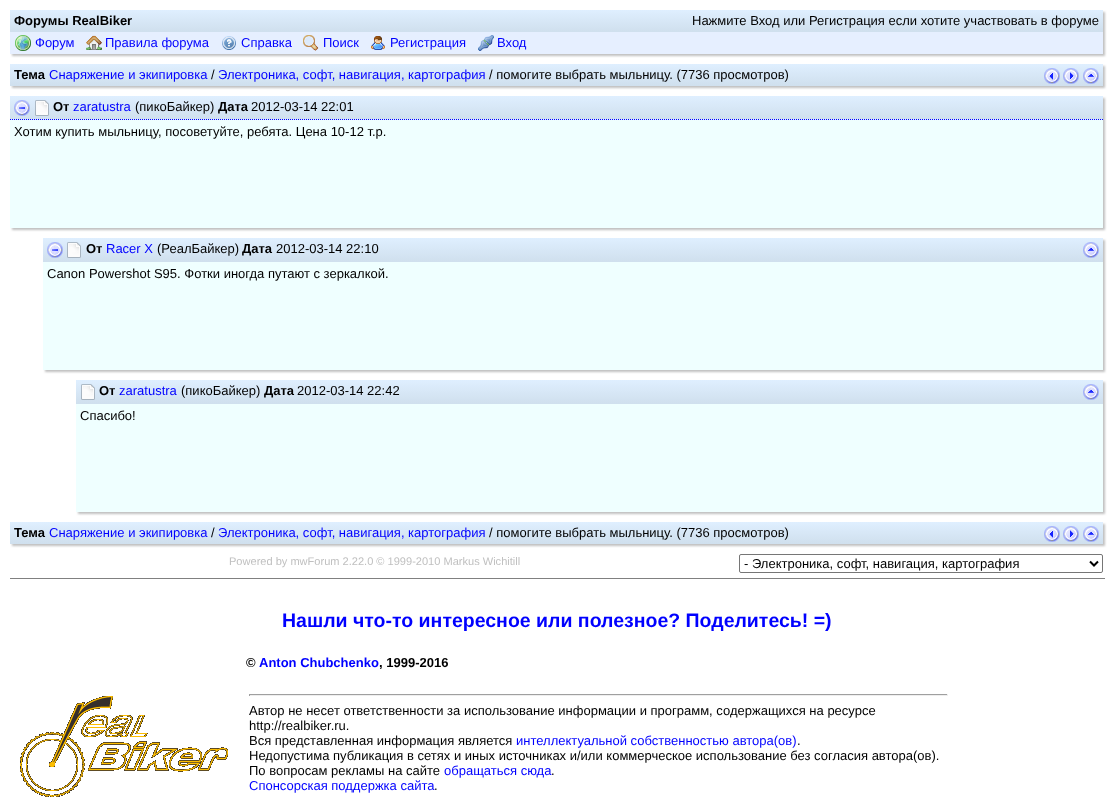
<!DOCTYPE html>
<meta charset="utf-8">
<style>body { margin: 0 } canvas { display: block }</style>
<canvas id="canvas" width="1113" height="805"></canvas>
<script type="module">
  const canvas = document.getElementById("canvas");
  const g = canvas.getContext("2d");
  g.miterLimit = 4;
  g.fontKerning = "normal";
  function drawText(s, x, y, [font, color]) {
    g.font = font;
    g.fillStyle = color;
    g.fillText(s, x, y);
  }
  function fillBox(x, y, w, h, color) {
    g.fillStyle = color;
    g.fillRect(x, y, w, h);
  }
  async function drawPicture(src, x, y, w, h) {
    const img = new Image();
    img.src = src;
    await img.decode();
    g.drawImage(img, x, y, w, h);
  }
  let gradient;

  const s1 = ["bold 13px Liberation Sans", "#000000"];
  const s2 = ["13px Liberation Sans", "#000000"];
  const s3 = ["13px Liberation Sans", "#0000FF"];
  const s4 = ["11.05px Liberation Sans", "#C0C0C0"];
  const s5 = ["bold 19.5px Liberation Sans", "#0000FF"];
  const s6 = ["bold 13px Liberation Sans", "#0000FF"];

  fillBox(0, 0, 1113, 805, "#FFFFFF");
  g.fillStyle = "#C0C0C0";
  g.filter = "blur(1px)";
  g.beginPath();
  g.rect(12, 12, 1093, 44);
  g.fill();
  g.filter = "none";
  gradient = g.createLinearGradient(10, 10, 10, 31);
  gradient.addColorStop(0, "#DFEFFF");
  gradient.addColorStop(1, "#D0E0EE");
  g.fillStyle = gradient;
  g.fillRect(10, 10, 1093, 21);
  fillBox(10, 31, 1093, 1, "#D0E0EE");
  drawText("Форумы RealBiker", 14, 25, s1);
  drawText("Нажмите Вход или Регистрация если хотите участвовать в форуме", 692, 25, s2);
  fillBox(10, 32, 1093, 22, "#E6EFFF");
  await drawPicture("pic1.png", 15, 35, 16, 16);
  drawText("Форум", 35, 47, s3);
  await drawPicture("pic2.png", 86, 35, 16, 15);
  drawText("Правила форума", 105, 47, s3);
  await drawPicture("pic3.png", 222, 36, 14, 14);
  drawText("Справка", 241, 47, s3);
  await drawPicture("pic4.png", 303, 35, 16, 16);
  drawText("Поиск", 323, 47, s3);
  await drawPicture("pic5.png", 371, 36, 14, 14);
  drawText("Регистрация", 390, 47, s3);
  await drawPicture("pic6.png", 478, 35, 16, 16);
  drawText("Вход", 497, 47, s3);
  g.fillStyle = "#C0C0C0";
  g.filter = "blur(1px)";
  g.beginPath();
  g.rect(12, 66, 1093, 22);
  g.fill();
  g.filter = "none";
  gradient = g.createLinearGradient(10, 64, 10, 85);
  gradient.addColorStop(0, "#DFEFFF");
  gradient.addColorStop(1, "#D0E0EE");
  g.fillStyle = gradient;
  g.fillRect(10, 64, 1093, 21);
  fillBox(10, 85, 1093, 1, "#D0E0EE");
  drawText("Тема", 14, 79, s1);
  drawText("Снаряжение и экипировка", 49, 79, s3);
  drawText("/", 211, 79, s2);
  drawText("Электроника, софт, навигация, картография", 218, 79, s3);
  drawText("/ помогите выбрать мыльницу. (7736 просмотров)", 489, 79, s2);
  await drawPicture("pic7.png", 1044, 68, 16, 16);
  await drawPicture("pic8.png", 1063, 68, 16, 16);
  await drawPicture("pic9.png", 1083, 68, 16, 16);
  g.fillStyle = "#C0C0C0";
  g.filter = "blur(1px)";
  g.beginPath();
  g.rect(12, 98, 1093, 132);
  g.fill();
  g.filter = "none";
  gradient = g.createLinearGradient(10, 96, 10, 119);
  gradient.addColorStop(0, "#DFEFFF");
  gradient.addColorStop(1, "#D0E0EE");
  g.fillStyle = gradient;
  g.fillRect(10, 96, 1093, 23);
  gradient = g.createLinearGradient(10, 119, 10, 142);
  gradient.addColorStop(0, "#DFEFFF");
  gradient.addColorStop(1, "#D0E0EE");
  g.fillStyle = gradient;
  g.fillRect(10, 119, 1093, 1);
  g.beginPath();
  g.moveTo(10, 119.5);
  g.lineTo(1103, 119.5);
  g.strokeStyle = "#0000FF";
  g.setLineDash([1, 1]);
  g.stroke();
  await drawPicture("pic10.png", 14, 100, 16, 16);
  await drawPicture("pic11.png", 35, 100, 14, 16);
  drawText("От", 53, 111, s1);
  drawText("zaratustra", 73, 111, s3);
  drawText("(пикоБайкер)", 135, 111, s2);
  drawText("Дата", 218, 111, s1);
  drawText("2012-03-14 22:01", 251, 111, s2);
  fillBox(10, 120, 1093, 108, "#EFFFFF");
  drawText("Хотим купить мыльницу, посоветуйте, ребята. Цена 10-12 т.р.", 14, 136, s2);
  g.fillStyle = "#C0C0C0";
  g.filter = "blur(1px)";
  g.beginPath();
  g.rect(45, 240, 1060, 132);
  g.fill();
  g.filter = "none";
  gradient = g.createLinearGradient(43, 238, 43, 261);
  gradient.addColorStop(0, "#DFEFFF");
  gradient.addColorStop(1, "#D0E0EE");
  g.fillStyle = gradient;
  g.fillRect(43, 238, 1060, 23);
  fillBox(43, 261, 1060, 1, "#D0E0EE");
  await drawPicture("pic10.png", 47, 242, 16, 16);
  await drawPicture("pic11.png", 67, 242, 14, 16);
  drawText("От", 86, 253, s1);
  drawText("Racer X", 106, 253, s3);
  drawText("(РеалБайкер)", 157, 253, s2);
  drawText("Дата", 242, 253, s1);
  drawText("2012-03-14 22:10", 276, 253, s2);
  await drawPicture("pic12.png", 1083, 242, 16, 16);
  fillBox(43, 262, 1060, 108, "#EFFFFF");
  drawText("Canon Powershot S95. Фотки иногда путают с зеркалкой.", 47, 278, s2);
  g.fillStyle = "#C0C0C0";
  g.filter = "blur(1px)";
  g.beginPath();
  g.rect(78, 382, 1027, 132);
  g.fill();
  g.filter = "none";
  gradient = g.createLinearGradient(76, 380, 76, 403);
  gradient.addColorStop(0, "#DFEFFF");
  gradient.addColorStop(1, "#D0E0EE");
  g.fillStyle = gradient;
  g.fillRect(76, 380, 1027, 23);
  fillBox(76, 403, 1027, 1, "#D0E0EE");
  await drawPicture("pic11.png", 81, 384, 14, 16);
  drawText("От", 99, 395, s1);
  drawText("zaratustra", 119, 395, s3);
  drawText("(пикоБайкер)", 181, 395, s2);
  drawText("Дата", 264, 395, s1);
  drawText("2012-03-14 22:42", 297, 395, s2);
  await drawPicture("pic12.png", 1083, 384, 16, 16);
  fillBox(76, 404, 1027, 108, "#EFFFFF");
  drawText("Спасибо!", 80, 420, s2);
  g.fillStyle = "#C0C0C0";
  g.filter = "blur(1px)";
  g.beginPath();
  g.rect(12, 524, 1093, 22);
  g.fill();
  g.filter = "none";
  gradient = g.createLinearGradient(10, 522, 10, 543);
  gradient.addColorStop(0, "#DFEFFF");
  gradient.addColorStop(1, "#D0E0EE");
  g.fillStyle = gradient;
  g.fillRect(10, 522, 1093, 21);
  fillBox(10, 543, 1093, 1, "#D0E0EE");
  drawText("Тема", 14, 537, s1);
  drawText("Снаряжение и экипировка", 49, 537, s3);
  drawText("/", 211, 537, s2);
  drawText("Электроника, софт, навигация, картография", 218, 537, s3);
  drawText("/ помогите выбрать мыльницу. (7736 просмотров)", 489, 537, s2);
  await drawPicture("pic7.png", 1044, 526, 16, 16);
  await drawPicture("pic8.png", 1063, 526, 16, 16);
  await drawPicture("pic9.png", 1083, 526, 16, 16);
  drawText("Powered by mwForum 2.22.0 © 1999-2010 Markus Wichitill", 229, 565, s4);
  g.beginPath();
  g.roundRect(739.5, 554.5, 363, 18, 1.5);
  g.strokeStyle = "#767676";
  g.setLineDash([]);
  g.stroke();
  g.beginPath();
  g.moveTo(1090, 561.5);
  g.lineTo(1094, 565.5);
  g.lineTo(1098, 561.5);
  g.strokeStyle = "#000000";
  g.lineWidth = 2;
  g.stroke();
  drawText("- Электроника, софт, навигация, картография", 744, 568, s2);
  fillBox(10, 578, 1095, 1, "#808080");
  drawText("Нашли что-то интересное или полезное? Поделитесь! =)", 282, 627, s5);
  await drawPicture("pic13.png", 20, 696, 208, 101);
  drawText("©", 246, 667, s1);
  drawText("Anton Chubchenko", 259, 667, s6);
  drawText(", 1999-2016", 379, 667, s1);
  fillBox(249, 694, 699, 1, "#9F9F9F");
  fillBox(947, 694, 1, 2, "#EEEEEE");
  fillBox(249, 695, 699, 1, "#EEEEEE");
  fillBox(249, 694, 1, 2, "#9F9F9F");
  drawText("Автор не несет ответственности за использование информации и программ, содержащихся на ресурсе", 249, 715, s2);
  drawText("http://realbiker.ru.", 249, 730, s2);
  drawText("Вся представленная информация является", 249, 745, s2);
  drawText("интеллектуальной собственностью автора(ов)", 516, 745, s3);
  drawText(".", 797, 745, s2);
  drawText("Недопустима публикация в сетях и иных источниках и/или коммерческое использование без согласия автора(ов).", 249, 760, s2);
  drawText("По вопросам рекламы на сайте", 249, 775, s2);
  drawText("обращаться сюда", 444, 775, s3);
  drawText(".", 551, 775, s2);
  drawText("Спонсорская поддержка сайта", 249, 790, s3);
  drawText(".", 434, 790, s2);
</script>
